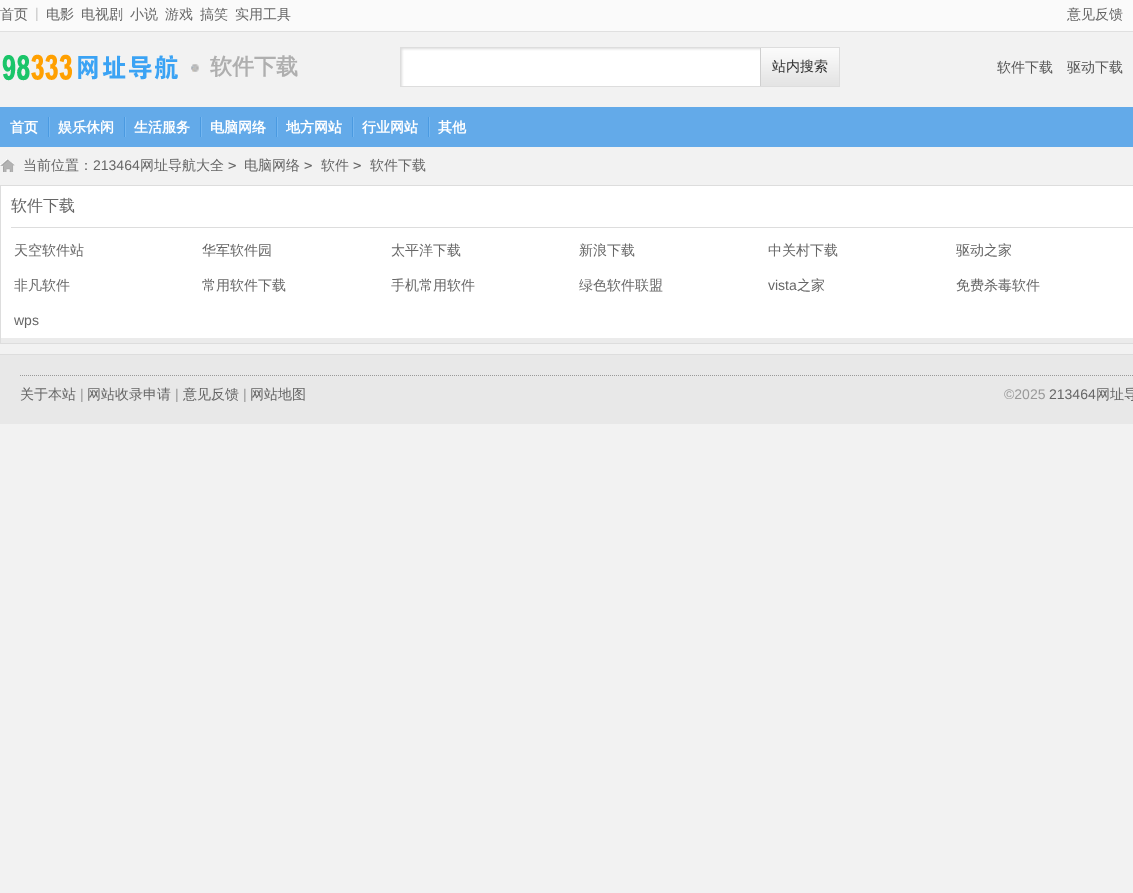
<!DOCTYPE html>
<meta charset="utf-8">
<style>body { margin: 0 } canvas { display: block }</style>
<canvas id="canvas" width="1133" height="893"></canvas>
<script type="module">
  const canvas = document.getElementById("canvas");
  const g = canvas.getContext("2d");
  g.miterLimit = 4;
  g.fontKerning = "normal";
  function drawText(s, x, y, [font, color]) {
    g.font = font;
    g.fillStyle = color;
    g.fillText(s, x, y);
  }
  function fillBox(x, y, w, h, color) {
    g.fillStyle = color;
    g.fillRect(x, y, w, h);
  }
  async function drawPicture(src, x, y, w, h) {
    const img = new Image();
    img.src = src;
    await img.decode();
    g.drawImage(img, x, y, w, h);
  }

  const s1 = ["500 14px WenQuanYi Zen Hei", "#666666"];
  const s2 = ["14px Liberation Sans", "#C7C7C7"];
  const s3 = ["bold 22px WenQuanYi Zen Hei", "#AFAFAF"];
  const s4 = ["500 14px WenQuanYi Zen Hei", "#333333"];
  const s5 = ["500 14px WenQuanYi Zen Hei", "#555555"];
  const s6 = ["bold 14px WenQuanYi Zen Hei", "#FFFFFF"];
  const s7 = ["14px Liberation Sans", "#666666"];
  const s8 = ["14px DejaVu Sans Mono", "#666666"];
  const s9 = ["500 16px WenQuanYi Zen Hei", "#666666"];
  const s10 = ["14px Liberation Sans", "#999999"];

  fillBox(0, 0, 1133, 893, "#F2F2F2");
  fillBox(0, 0, 1133, 31, "#FAFAFA");
  fillBox(0, 31, 1133, 1, "#E0E0E0");
  drawText("首页", 0, 19, s1);
  drawText("|", 35, 18, s2);
  drawText("电影", 46, 19, s1);
  drawText("电视剧", 81, 19, s1);
  drawText("小说", 130, 19, s1);
  drawText("游戏", 165, 19, s1);
  drawText("搞笑", 200, 19, s1);
  drawText("实用工具", 235, 19, s1);
  drawText("意见反馈", 1067, 19, s1);
  await drawPicture("pic1.png", 2, 54, 176, 27);
  await drawPicture("pic2.png", 191, 64, 8, 8);
  drawText("软件下载", 210, 74, s3);
  await drawPicture("pic3.png", 401, 48, 359, 38);
  g.strokeStyle = "#DDDDDD";
  g.strokeRect(400.5, 47.5, 439, 39);
  await drawPicture("pic4.png", 760, 48, 79, 38);
  drawText("站内搜索", 772, 71, s4);
  drawText("软件下载", 997, 72, s5);
  drawText("驱动下载", 1067, 72, s5);
  fillBox(0, 107, 1133, 40, "#63AAE9");
  drawText("首页", 10, 132, s6);
  await drawPicture("pic5.png", 48, 117, 2, 20);
  drawText("娱乐休闲", 58, 132, s6);
  await drawPicture("pic5.png", 124, 117, 2, 20);
  drawText("生活服务", 134, 132, s6);
  await drawPicture("pic5.png", 200, 117, 2, 20);
  drawText("电脑网络", 210, 132, s6);
  await drawPicture("pic5.png", 276, 117, 2, 20);
  drawText("地方网站", 286, 132, s6);
  await drawPicture("pic5.png", 352, 117, 2, 20);
  drawText("行业网站", 362, 132, s6);
  await drawPicture("pic5.png", 428, 117, 2, 20);
  drawText("其他", 438, 132, s6);
  await drawPicture("pic6.png", 0, 159, 15, 13);
  drawText("当前位置：", 23, 170, s1);
  drawText("213464", 93, 170, s7);
  drawText("网址导航大全", 140, 170, s1);
  drawText(">", 228, 170, s8);
  drawText("电脑网络", 244, 170, s1);
  drawText(">", 304, 170, s8);
  drawText("软件", 321, 170, s1);
  drawText(">", 353, 170, s8);
  drawText("软件下载", 370, 170, s1);
  fillBox(1, 186, 1132, 152, "#FFFFFF");
  g.strokeRect(0.5, 185.5, 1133, 158);
  fillBox(11, 227, 1122, 1, "#DDDDDD");
  drawText("软件下载", 11, 211, s9);
  drawText("天空软件站", 14, 255, s1);
  drawText("华军软件园", 202, 255, s1);
  drawText("太平洋下载", 391, 255, s1);
  drawText("新浪下载", 579, 255, s1);
  drawText("中关村下载", 768, 255, s1);
  drawText("驱动之家", 956, 255, s1);
  drawText("非凡软件", 14, 290, s1);
  drawText("常用软件下载", 202, 290, s1);
  drawText("手机常用软件", 391, 290, s1);
  drawText("绿色软件联盟", 579, 290, s1);
  drawText("vista", 768, 290, s7);
  drawText("之家", 797, 290, s1);
  drawText("免费杀毒软件", 956, 290, s1);
  drawText("wps", 14, 325, s7);
  fillBox(1, 338, 1132, 5, "#EBEBEB");
  fillBox(0, 355, 1133, 69, "#E8E8E8");
  fillBox(0, 354, 1133, 1, "#DDDDDD");
  g.beginPath();
  g.moveTo(20, 375.5);
  g.lineTo(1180, 375.5);
  g.strokeStyle = "#999999";
  g.setLineDash([1, 1]);
  g.stroke();
  drawText("关于本站", 20, 399, s1);
  drawText("|", 80, 399, s10);
  drawText("网站收录申请", 87, 399, s1);
  drawText("|", 175, 399, s10);
  drawText("意见反馈", 183, 399, s1);
  drawText("|", 243, 399, s10);
  drawText("网站地图", 250, 399, s1);
  drawText("©2025", 1004, 399, s10);
  drawText("213464", 1049, 399, s7);
  drawText("网址导", 1096, 399, s1);
</script>
